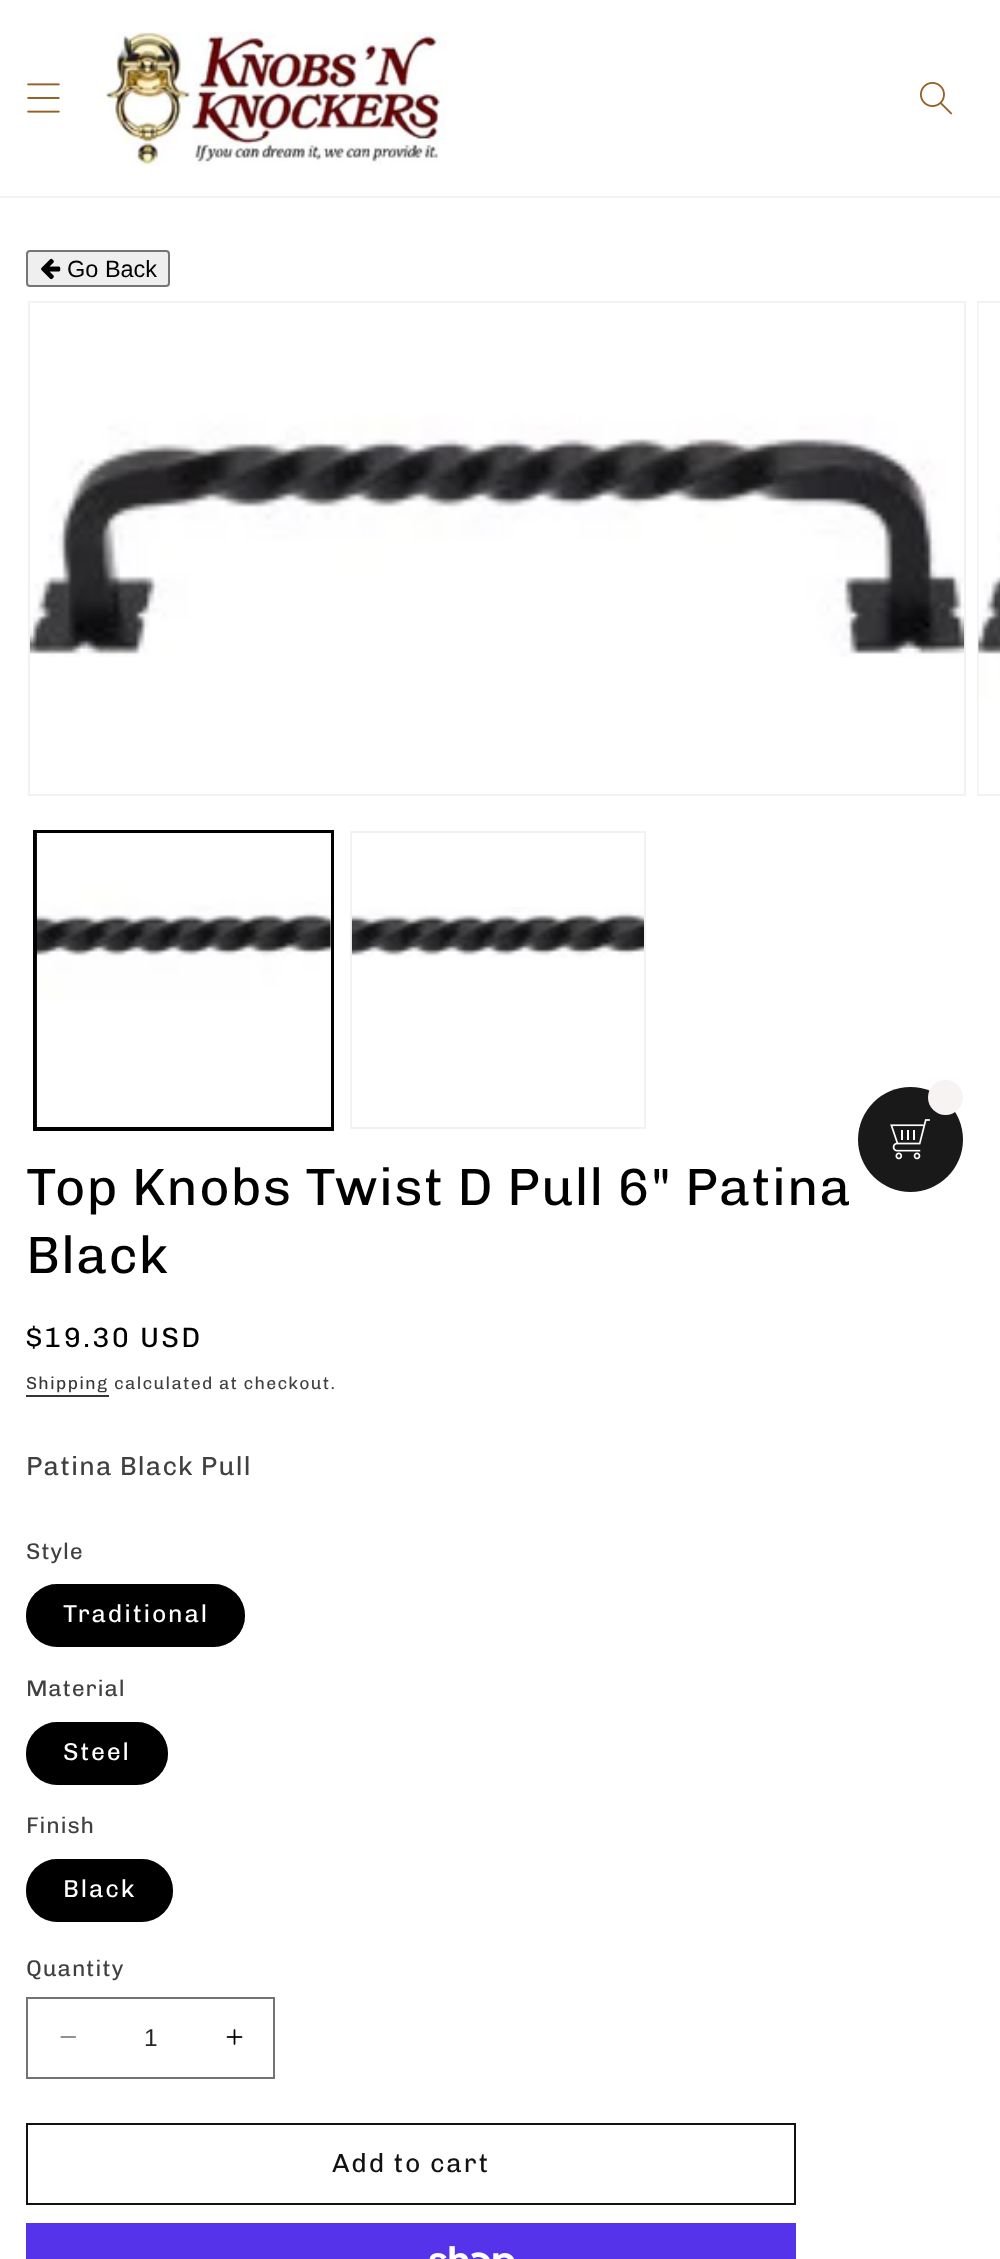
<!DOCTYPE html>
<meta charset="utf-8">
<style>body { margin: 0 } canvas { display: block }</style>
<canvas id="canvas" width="1000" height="2259"></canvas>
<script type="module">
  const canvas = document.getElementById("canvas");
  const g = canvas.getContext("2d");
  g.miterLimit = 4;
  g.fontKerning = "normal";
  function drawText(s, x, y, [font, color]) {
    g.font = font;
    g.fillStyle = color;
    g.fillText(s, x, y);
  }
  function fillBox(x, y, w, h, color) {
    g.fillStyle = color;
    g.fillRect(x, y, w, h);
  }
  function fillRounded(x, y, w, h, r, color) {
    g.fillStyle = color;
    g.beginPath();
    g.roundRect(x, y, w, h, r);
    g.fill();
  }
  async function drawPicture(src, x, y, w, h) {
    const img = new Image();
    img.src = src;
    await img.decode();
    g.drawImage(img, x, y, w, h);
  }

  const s1 = ["23.5px Liberation Sans", "#000000"];
  const s2 = ["52.5px Chivo", "#000000"];
  const s3 = ["28px Chivo", "#000000"];
  const s4 = ["17.5px Chivo", "#363636"];
  const s5 = ["17.5px Chivo", "#404040"];
  const s6 = ["26.25px Chivo", "#404040"];
  const s7 = ["22.75px Chivo", "#404040"];
  const s8 = ["24.5px Chivo", "#FFFFFF"];
  const s9 = ["24.5px Liberation Sans", "#262626"];
  const s10 = ["26.25px Chivo", "#121212"];

  fillBox(0, 0, 1000, 2259, "#FFFFFF");
  fillBox(0, 196, 1000, 2, "#F7F2EE");
  await drawPicture("pic1.png", 27, 83, 33, 30);
  await drawPicture("pic2.png", 97, 31, 349, 135);
  await drawPicture("pic3.png", 920, 82, 32, 33);
  g.fillStyle = "#EFEFEF";
  g.beginPath();
  g.roundRect(27, 251, 142, 35, 3);
  g.fill();
  g.strokeStyle = "#767676";
  g.lineWidth = 2;
  g.stroke();
  await drawPicture("pic4.png", 41, 258, 20, 22);
  drawText("Go Back", 67, 277, s1);
  g.strokeStyle = "#F2F2F2";
  g.strokeRect(29, 302, 936, 493);
  await drawPicture("pic5.png", 29, 414, 936, 243);
  g.strokeRect(978, 302, 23, 493);
  await drawPicture("pic6.png", 978, 303, 22, 491);
  g.strokeStyle = "#000000";
  g.strokeRect(34, 831, 299, 299);
  g.strokeRect(36, 832, 296, 296);
  await drawPicture("pic7.png", 36, 833, 295, 294);
  g.strokeStyle = "#F2F2F2";
  g.strokeRect(351, 832, 294, 296);
  await drawPicture("pic8.png", 351, 907, 293, 51);
  g.letterSpacing = "1.05px";
  drawText("Top Knobs Twist D Pull 6\" Patina", 26, 1205, s2);
  drawText("Black", 26, 1273, s2);
  g.letterSpacing = "2.25px";
  drawText("$19.30 USD", 26, 1347, s3);
  g.letterSpacing = "1.25px";
  drawText("Shipping", 26, 1389, s4);
  fillBox(26, 1395, 83, 2, "#363636");
  drawText("calculated at checkout.", 114, 1389, s5);
  g.letterSpacing = "1.05px";
  drawText("Patina Black Pull", 26, 1475, s6);
  g.letterSpacing = "0.75px";
  drawText("Style", 26, 1559, s7);
  fillRounded(26, 1584, 219, 63, 31.5, "#000000");
  g.beginPath();
  g.roundRect(27, 1585, 217, 61, 30.5);
  g.strokeStyle = "rgba(0, 0, 0, 0.55)";
  g.stroke();
  g.letterSpacing = "1.75px";
  drawText("Traditional", 63, 1622, s8);
  g.letterSpacing = "0.75px";
  drawText("Material", 26, 1696, s7);
  fillRounded(26, 1722, 142, 63, 31.5, "#000000");
  g.beginPath();
  g.roundRect(27, 1723, 140, 61, 30.5);
  g.stroke();
  g.letterSpacing = "1.75px";
  drawText("Steel", 63, 1760, s8);
  g.letterSpacing = "0.75px";
  drawText("Finish", 26, 1833, s7);
  fillRounded(26, 1859, 147, 63, 31.5, "#000000");
  g.beginPath();
  g.roundRect(27, 1860, 145, 61, 30.5);
  g.stroke();
  g.letterSpacing = "1.75px";
  drawText("Black", 63, 1897, s8);
  g.letterSpacing = "0.75px";
  drawText("Quantity", 26, 1976, s7);
  await drawPicture("pic9.png", 60, 2036, 16, 2);
  await drawPicture("pic10.png", 226, 2029, 17, 16);
  g.strokeStyle = "#737373";
  g.strokeRect(27, 1998, 247, 80);
  g.letterSpacing = "0px";
  drawText("1", 144, 2046, s9);
  g.strokeStyle = "#121212";
  g.strokeRect(27, 2124, 768, 80);
  g.letterSpacing = "1.75px";
  drawText("Add to cart", 332, 2172, s10);
  fillBox(26, 2223, 770, 36, "#5433EB");
  await drawPicture("pic11.png", 429, 2246, 85, 13);
  g.fillStyle = "#191919";
  g.beginPath();
  g.arc(910.5, 1139.5, 52.5, 0, Math.PI * 2);
  g.fill();
  g.fillStyle = "#F7F3F3";
  g.beginPath();
  g.arc(945.5, 1097.5, 17.5, 0, Math.PI * 2);
  g.fill();
  await drawPicture("pic12.png", 890, 1119, 40, 41);
</script>
